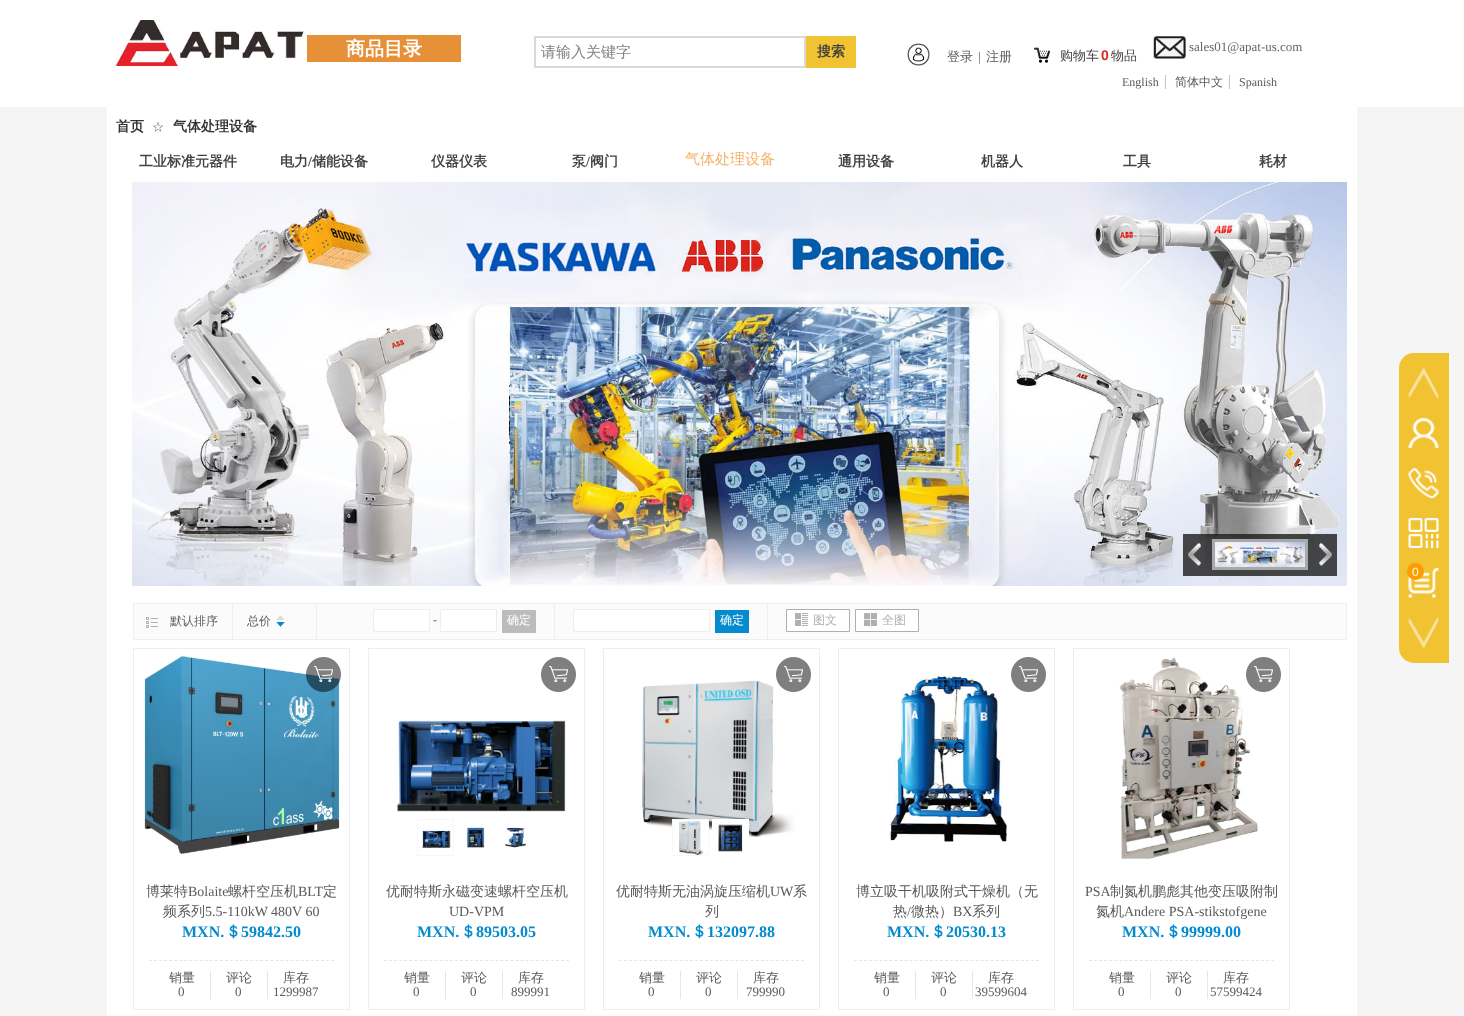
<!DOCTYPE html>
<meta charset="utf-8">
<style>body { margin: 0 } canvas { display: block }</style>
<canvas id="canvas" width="1464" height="1016"></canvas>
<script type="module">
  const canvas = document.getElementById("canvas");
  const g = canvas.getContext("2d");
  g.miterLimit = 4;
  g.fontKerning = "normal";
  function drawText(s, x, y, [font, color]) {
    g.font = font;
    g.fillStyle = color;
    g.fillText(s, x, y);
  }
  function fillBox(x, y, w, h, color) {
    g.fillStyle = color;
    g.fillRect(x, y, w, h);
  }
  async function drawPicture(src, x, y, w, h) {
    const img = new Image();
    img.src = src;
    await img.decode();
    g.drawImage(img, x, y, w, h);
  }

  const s1 = ["bold 19px WenQuanYi Zen Hei", "#FFFFFF"];
  const s2 = ["500 15px WenQuanYi Zen Hei", "#808080"];
  const s3 = ["bold 14px WenQuanYi Zen Hei", "#434343"];
  const s4 = ["500 13px WenQuanYi Zen Hei", "#5A5A5A"];
  const s5 = ["13px Liberation Serif", "#5A5A5A"];
  const s6 = ["500 13px WenQuanYi Zen Hei", "#434343"];
  const s7 = ["bold 14px Liberation Sans", "#DA2525"];
  const s8 = ["13px Liberation Serif", "#666666"];
  const s9 = ["12px Liberation Serif", "#5A5A5A"];
  const s10 = ["500 12px WenQuanYi Zen Hei", "#5A5A5A"];
  const s11 = ["bold 14px WenQuanYi Zen Hei", "#333333"];
  const s12 = ["bold 14px Liberation Serif", "#434343"];
  const s13 = ["500 15px WenQuanYi Zen Hei", "#F6B26B"];
  const s14 = ["12px Liberation Sans", "#5A5A5A"];
  const s15 = ["500 12px WenQuanYi Zen Hei", "#FFFFFF"];
  const s16 = ["500 12px WenQuanYi Zen Hei", "#AFAFAF"];
  const s17 = ["500 14px WenQuanYi Zen Hei", "#5A5A5A"];
  const s18 = ["14px Liberation Serif", "#5A5A5A"];
  const s19 = ["bold 16px Liberation Serif", "#048BCD"];
  const s20 = ["bold 16px WenQuanYi Zen Hei", "#048BCD"];
  const s21 = ["12px Liberation Sans", "#FFFFFF"];

  fillBox(0, 0, 1464, 1016, "#F5F5F5");
  fillBox(0, 0, 1464, 107, "#FFFFFF");
  await drawPicture("pic1.png", 112, 20, 192, 46);
  fillBox(307, 35, 154, 27, "#E69138");
  drawText("商品目录", 346, 55, s1);
  g.strokeStyle = "#D9D9D9";
  g.lineWidth = 2;
  g.strokeRect(535, 37, 270, 30);
  drawText("请输入关键字", 541, 57, s2);
  fillBox(806, 36, 50, 32, "#F1C232");
  drawText("搜索", 817, 56, s3);
  await drawPicture("pic2.png", 907, 43, 23, 23);
  drawText("登录", 947, 61, s4);
  drawText("|", 978, 61, s5);
  drawText("注册", 986, 61, s4);
  await drawPicture("pic3.png", 1034, 47, 16, 16);
  drawText("购物车", 1060, 60, s6);
  drawText("0", 1101, 60, s7);
  drawText("物品", 1111, 60, s6);
  await drawPicture("pic4.png", 1153, 36, 33, 23);
  drawText("sales01@apat-us.com", 1189, 51, s8);
  fillBox(1165, 75, 1, 14, "#C6C6C6");
  drawText("English", 1122, 86, s9);
  fillBox(1229, 75, 1, 14, "#C6C6C6");
  drawText("简体中文", 1175, 86, s10);
  drawText("Spanish", 1239, 86, s9);
  fillBox(107, 107, 1250, 909, "#FFFFFF");
  drawText("首页", 116, 131, s11);
  drawText("☆", 152, 131, s10);
  drawText("气体处理设备", 173, 131, s11);
  drawText("工业标准元器件", 139, 166, s3);
  drawText("电力", 280, 166, s3);
  drawText("/", 308, 166, s12);
  drawText("储能设备", 312, 166, s3);
  drawText("仪器仪表", 431, 166, s3);
  drawText("泵", 572, 166, s3);
  drawText("/", 586, 166, s12);
  drawText("阀门", 590, 166, s3);
  drawText("气体处理设备", 685, 164, s13);
  drawText("通用设备", 838, 166, s3);
  drawText("机器人", 981, 166, s3);
  drawText("工具", 1123, 166, s3);
  drawText("耗材", 1259, 166, s3);
  await drawPicture("pic5.png", 132, 182, 1215, 404);
  g.fillStyle = "#FBFBFB";
  g.beginPath();
  g.rect(133.5, 603.5, 1213, 36);
  g.fill();
  g.strokeStyle = "#EEEEEE";
  g.lineWidth = 1;
  g.stroke();
  await drawPicture("pic6.png", 146, 617, 12, 11);
  fillBox(232, 604, 1, 35, "#EEEEEE");
  drawText("默认排序", 170, 625, s10);
  fillBox(316, 604, 1, 35, "#EEEEEE");
  drawText("总价", 247, 625, s10);
  fillBox(276, 615, 9, 5, "#DCDCDC");
  await drawPicture("pic7.png", 276, 615, 9, 5);
  fillBox(276, 622, 9, 5, "#048BCD");
  await drawPicture("pic8.png", 276, 622, 9, 5);
  g.fillStyle = "#FFFFFF";
  g.beginPath();
  g.rect(373.5, 609.5, 56, 22);
  g.fill();
  g.stroke();
  drawText("-", 433, 624, s14);
  g.fillStyle = "#FFFFFF";
  g.beginPath();
  g.rect(440.5, 609.5, 56, 22);
  g.fill();
  g.stroke();
  fillBox(554, 604, 1, 35, "#EEEEEE");
  fillBox(502, 610, 34, 23, "#BCBCBC");
  drawText("确定", 507, 624, s15);
  g.beginPath();
  g.rect(573.5, 609.5, 136, 22);
  g.fill();
  g.stroke();
  fillBox(767, 604, 1, 35, "#EEEEEE");
  fillBox(715, 610, 34, 23, "#048BCD");
  drawText("确定", 720, 624, s15);
  g.beginPath();
  g.rect(786.5, 609.5, 63, 22);
  g.fill();
  g.strokeStyle = "#AFAFAF";
  g.stroke();
  fillBox(795, 613, 13, 13, "#AFAFAF");
  await drawPicture("pic9.png", 795, 613, 13, 13);
  drawText("图文", 813, 624, s16);
  g.fillStyle = "#FFFFFF";
  g.beginPath();
  g.rect(855.5, 609.5, 63, 22);
  g.fill();
  g.stroke();
  fillBox(864, 613, 13, 13, "#AFAFAF");
  await drawPicture("pic10.png", 864, 613, 13, 13);
  drawText("全图", 882, 624, s16);
  g.strokeStyle = "#EEEEEE";
  g.strokeRect(133.5, 648.5, 216, 361);
  await drawPicture("pic11.png", 144, 655, 196, 199);
  await drawPicture("pic12.png", 306, 657, 35, 35);
  drawText("博莱特", 146, 896, s17);
  drawText("Bolaite", 188, 896, s18);
  drawText("螺杆空压机", 228, 896, s17);
  drawText("BLT", 298, 896, s18);
  drawText("定", 323, 896, s17);
  drawText("频系列", 163, 916, s17);
  drawText("5.5-110kW 480V 60", 205, 916, s18);
  drawText("MXN.", 182, 937, s19);
  drawText("＄", 225, 937, s20);
  drawText("59842.50", 241, 937, s19);
  g.beginPath();
  g.moveTo(149, 960.5);
  g.lineTo(334, 960.5);
  g.strokeStyle = "#E6E6E6";
  g.setLineDash([3, 2.06]);
  g.stroke();
  fillBox(210, 971, 1, 28, "#E6E6E6");
  drawText("销量", 169, 982, s4);
  drawText("0", 178, 996, s5);
  fillBox(267, 971, 1, 28, "#E6E6E6");
  drawText("评论", 226, 982, s4);
  drawText("0", 235, 996, s5);
  drawText("库存", 283, 982, s4);
  drawText("1299987", 273, 996, s5);
  g.strokeStyle = "#EEEEEE";
  g.setLineDash([]);
  g.strokeRect(368.5, 648.5, 216, 361);
  await drawPicture("pic13.png", 541, 657, 35, 35);
  await drawPicture("pic14.png", 397, 720, 169, 92);
  fillBox(417, 819, 37, 37, "#F7F7F7");
  await drawPicture("pic15.png", 418, 820, 35, 35);
  await drawPicture("pic16.png", 466, 827, 19, 21);
  await drawPicture("pic17.png", 505, 827, 21, 21);
  drawText("优耐特斯永磁变速螺杆空压机", 386, 896, s17);
  drawText("UD-VPM", 449, 916, s18);
  drawText("MXN.", 417, 937, s19);
  drawText("＄", 460, 937, s20);
  drawText("89503.05", 476, 937, s19);
  g.beginPath();
  g.moveTo(384, 960.5);
  g.lineTo(569, 960.5);
  g.strokeStyle = "#E6E6E6";
  g.setLineDash([3, 2.06]);
  g.stroke();
  fillBox(445, 971, 1, 28, "#E6E6E6");
  drawText("销量", 404, 982, s4);
  drawText("0", 413, 996, s5);
  fillBox(502, 971, 1, 28, "#E6E6E6");
  drawText("评论", 461, 982, s4);
  drawText("0", 470, 996, s5);
  drawText("库存", 518, 982, s4);
  drawText("899991", 511, 996, s5);
  g.strokeStyle = "#EEEEEE";
  g.setLineDash([]);
  g.strokeRect(603.5, 648.5, 216, 361);
  await drawPicture("pic18.png", 642, 680, 153, 157);
  await drawPicture("pic13.png", 776, 657, 35, 35);
  fillBox(672, 819, 37, 37, "#F7F7F7");
  await drawPicture("pic19.png", 673, 820, 35, 35);
  g.strokeStyle = "#FFFFFF";
  g.strokeRect(712.5, 819.5, 36, 36);
  await drawPicture("pic20.png", 713, 820, 35, 32);
  drawText("优耐特斯无油涡旋压缩机", 616, 896, s17);
  drawText("UW", 770, 896, s18);
  drawText("系", 793, 896, s17);
  drawText("列", 705, 916, s17);
  drawText("MXN.", 648, 937, s19);
  drawText("＄", 691, 937, s20);
  drawText("132097.88", 707, 937, s19);
  g.beginPath();
  g.moveTo(619, 960.5);
  g.lineTo(804, 960.5);
  g.strokeStyle = "#E6E6E6";
  g.setLineDash([3, 2.06]);
  g.stroke();
  fillBox(680, 971, 1, 28, "#E6E6E6");
  drawText("销量", 639, 982, s4);
  drawText("0", 648, 996, s5);
  fillBox(737, 971, 1, 28, "#E6E6E6");
  drawText("评论", 696, 982, s4);
  drawText("0", 705, 996, s5);
  drawText("库存", 753, 982, s4);
  drawText("799990", 746, 996, s5);
  g.strokeStyle = "#EEEEEE";
  g.setLineDash([]);
  g.strokeRect(838.5, 648.5, 216, 361);
  await drawPicture("pic21.png", 890, 674, 118, 168);
  await drawPicture("pic13.png", 1011, 657, 35, 35);
  drawText("博立吸干机吸附式干燥机（无", 856, 896, s17);
  drawText("热", 893, 916, s17);
  drawText("/", 907, 916, s18);
  drawText("微热）", 911, 916, s17);
  drawText("BX", 953, 916, s18);
  drawText("系列", 972, 916, s17);
  drawText("MXN.", 887, 937, s19);
  drawText("＄", 930, 937, s20);
  drawText("20530.13", 946, 937, s19);
  g.beginPath();
  g.moveTo(854, 960.5);
  g.lineTo(1039, 960.5);
  g.strokeStyle = "#E6E6E6";
  g.setLineDash([3, 2.06]);
  g.stroke();
  fillBox(915, 971, 1, 28, "#E6E6E6");
  drawText("销量", 874, 982, s4);
  drawText("0", 883, 996, s5);
  fillBox(972, 971, 1, 28, "#E6E6E6");
  drawText("评论", 931, 982, s4);
  drawText("0", 940, 996, s5);
  drawText("库存", 988, 982, s4);
  drawText("39599604", 975, 996, s5);
  g.strokeStyle = "#EEEEEE";
  g.setLineDash([]);
  g.strokeRect(1073.5, 648.5, 216, 361);
  await drawPicture("pic22.png", 1119, 657, 139, 202);
  await drawPicture("pic13.png", 1246, 657, 35, 35);
  drawText("PSA", 1085, 896, s18);
  drawText("制氮机鹏彪其他变压吸附制", 1110, 896, s17);
  drawText("氮机", 1096, 916, s17);
  drawText("Andere PSA-stikstofgene", 1124, 916, s18);
  drawText("MXN.", 1122, 937, s19);
  drawText("＄", 1165, 937, s20);
  drawText("99999.00", 1181, 937, s19);
  g.beginPath();
  g.moveTo(1089, 960.5);
  g.lineTo(1274, 960.5);
  g.strokeStyle = "#E6E6E6";
  g.setLineDash([3, 2.06]);
  g.stroke();
  fillBox(1150, 971, 1, 28, "#E6E6E6");
  drawText("销量", 1109, 982, s4);
  drawText("0", 1118, 996, s5);
  fillBox(1207, 971, 1, 28, "#E6E6E6");
  drawText("评论", 1166, 982, s4);
  drawText("0", 1175, 996, s5);
  drawText("库存", 1223, 982, s4);
  drawText("57599424", 1210, 996, s5);
  g.fillStyle = "#F1C232";
  g.beginPath();
  g.roundRect(1399, 353, 50, 310, [15, 0, 0, 15]);
  g.fill();
  await drawPicture("pic23.png", 1408, 368, 31, 30);
  await drawPicture("pic24.png", 1408, 418, 31, 30);
  await drawPicture("pic25.png", 1408, 468, 31, 30);
  await drawPicture("pic26.png", 1408, 518, 31, 30);
  await drawPicture("pic27.png", 1408, 568, 31, 30);
  g.fillStyle = "#FF9C00";
  g.beginPath();
  g.arc(1415.5, 571.5, 8.5, 0, Math.PI * 2);
  g.fill();
  drawText("0", 1412, 576, s21);
  await drawPicture("pic28.png", 1408, 618, 31, 30);
</script>
